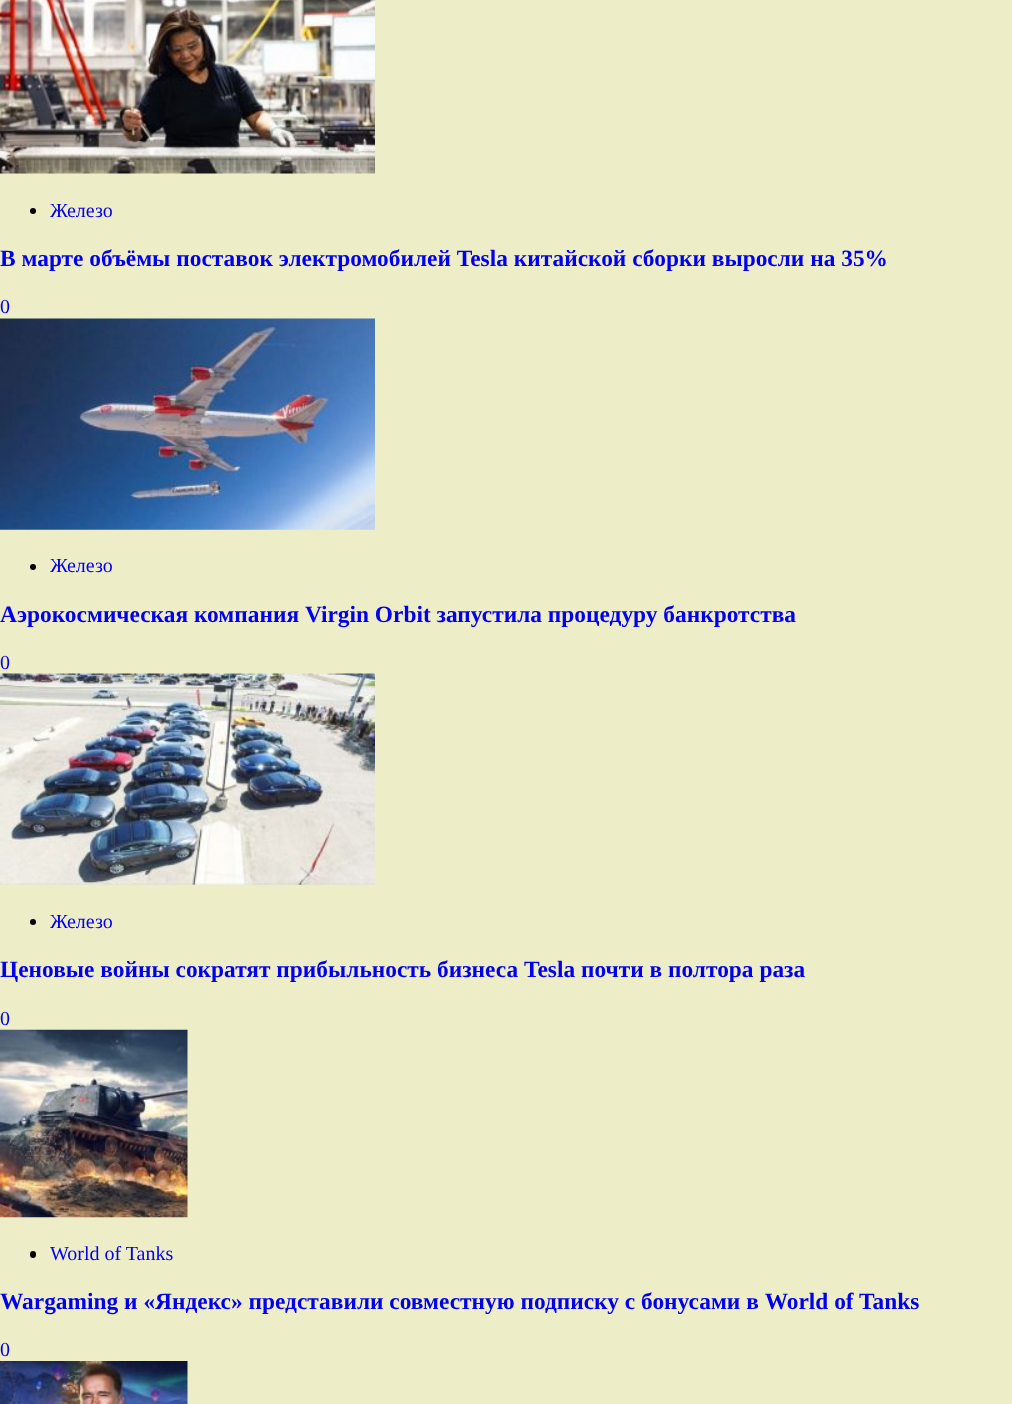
<!DOCTYPE html>
<meta charset="utf-8">
<style>body { margin: 0 } canvas { display: block }</style>
<canvas id="canvas" width="1012" height="1404"></canvas>
<script type="module">
  const canvas = document.getElementById("canvas");
  const g = canvas.getContext("2d");
  g.miterLimit = 4;
  g.fontKerning = "normal";
  function drawText(s, x, y, [font, color]) {
    g.font = font;
    g.fillStyle = color;
    g.fillText(s, x, y);
  }
  function fillBox(x, y, w, h, color) {
    g.fillStyle = color;
    g.fillRect(x, y, w, h);
  }
  function fillRounded(x, y, w, h, r, color) {
    g.fillStyle = color;
    g.beginPath();
    g.roundRect(x, y, w, h, r);
    g.fill();
  }
  async function drawPicture(src, x, y, w, h) {
    const img = new Image();
    img.src = src;
    await img.decode();
    g.drawImage(img, x, y, w, h);
  }

  const s1 = ["20px Liberation Serif", "#0000EE"];
  const s2 = ["bold 23.4px Liberation Serif", "#0000EE"];

  fillBox(0, 0, 1012, 1404, "#EDEDC7");
  await drawPicture("pic1.png", 0, 0, 375, 174);
  g.fillStyle = "#000000";
  g.beginPath();
  g.arc(33, 211, 3, 0, Math.PI * 2);
  g.fill();
  drawText("Железо", 50, 217, s1);
  drawText("В марте объёмы поставок электромобилей Tesla китайской сборки выросли на 35%", 0, 266, s2);
  drawText("0", 0, 313, s1);
  await drawPicture("pic2.png", 0, 318, 375, 212);
  g.fillStyle = "#000000";
  g.beginPath();
  g.arc(33, 567, 3, 0, Math.PI * 2);
  g.fill();
  drawText("Железо", 50, 572, s1);
  drawText("Аэрокосмическая компания Virgin Orbit запустила процедуру банкротства", 0, 622, s2);
  drawText("0", 0, 669, s1);
  await drawPicture("pic3.png", 0, 673, 375, 212);
  g.fillStyle = "#000000";
  g.beginPath();
  g.arc(33, 922, 3, 0, Math.PI * 2);
  g.fill();
  drawText("Железо", 50, 928, s1);
  drawText("Ценовые войны сократят прибыльность бизнеса Tesla почти в полтора раза", 0, 977, s2);
  drawText("0", 0, 1025, s1);
  await drawPicture("pic4.png", 0, 1029, 188, 189);
  fillRounded(30, 1251, 6, 7, 3, "#000000");
  drawText("World of Tanks", 50, 1260, s1);
  drawText("Wargaming и «Яндекс» представили совместную подписку с бонусами в World of Tanks", 0, 1309, s2);
  drawText("0", 0, 1356, s1);
  await drawPicture("pic5.png", 0, 1361, 188, 43);
</script>
